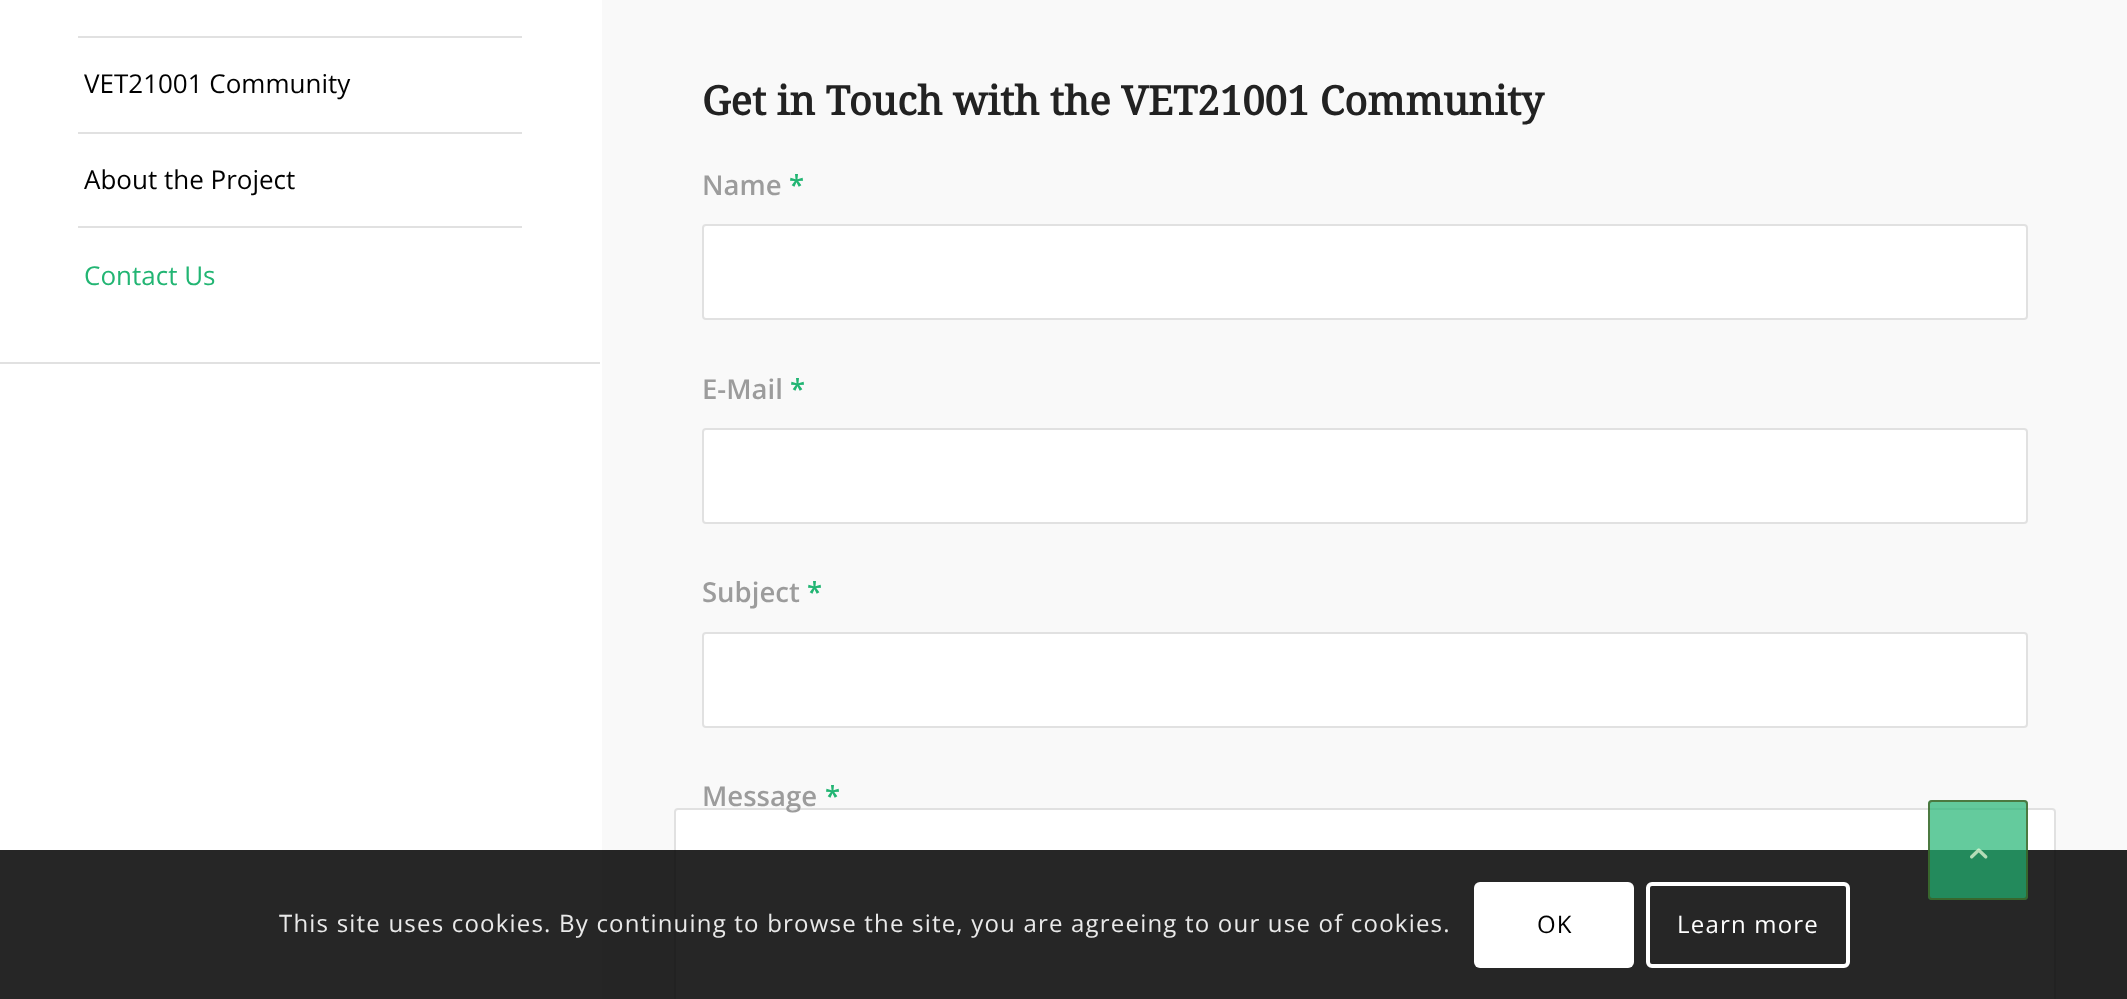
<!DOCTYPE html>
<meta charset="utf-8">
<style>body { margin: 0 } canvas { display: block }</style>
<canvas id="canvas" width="2127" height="999"></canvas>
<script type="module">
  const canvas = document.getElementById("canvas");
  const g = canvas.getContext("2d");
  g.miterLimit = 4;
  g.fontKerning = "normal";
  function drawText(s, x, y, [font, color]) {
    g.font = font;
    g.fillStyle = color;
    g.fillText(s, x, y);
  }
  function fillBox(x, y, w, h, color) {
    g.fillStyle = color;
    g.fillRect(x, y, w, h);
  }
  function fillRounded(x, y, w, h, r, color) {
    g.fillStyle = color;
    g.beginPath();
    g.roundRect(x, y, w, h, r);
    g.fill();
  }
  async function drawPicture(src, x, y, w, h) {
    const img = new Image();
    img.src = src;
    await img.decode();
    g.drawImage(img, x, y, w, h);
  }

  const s1 = ["26px Open Sans", "#000000"];
  const s2 = ["26px Open Sans", "#22B573"];
  const s3 = ["bold 40px Droid Serif", "#222222"];
  const s4 = ["600 27.5px Open Sans", "#9C9C9C"];
  const s5 = ["600 27.5px Open Sans", "#22B573"];
  const s6 = ["24px Open Sans", "#E9E9E9"];
  const s7 = ["24px Open Sans", "#000000"];
  const s8 = ["24px Open Sans", "#FFFFFF"];

  fillBox(0, 0, 2127, 999, "#FFFFFF");
  fillBox(0, 362, 600, 2, "#E1E1E1");
  fillBox(78, 36, 444, 2, "#E1E1E1");
  fillBox(78, 132, 444, 2, "#E1E1E1");
  drawText("VET21001 Community", 84, 93, s1);
  fillBox(78, 226, 444, 2, "#E1E1E1");
  drawText("About the Project", 84, 189, s1);
  drawText("Contact Us", 84, 285, s2);
  fillBox(602, 0, 1525, 999, "#F9F9F9");
  drawText("Get in Touch with the VET21001 Community", 702, 115, s3);
  drawText("Name", 702, 195, s4);
  drawText("*", 789, 195, s5);
  g.fillStyle = "#FFFFFF";
  g.beginPath();
  g.roundRect(703, 225, 1324, 94, 3);
  g.fill();
  g.strokeStyle = "#E1E1E1";
  g.lineWidth = 2;
  g.stroke();
  drawText("E-Mail", 702, 399, s4);
  drawText("*", 790, 399, s5);
  g.fillStyle = "#FFFFFF";
  g.beginPath();
  g.roundRect(703, 429, 1324, 94, 3);
  g.fill();
  g.stroke();
  drawText("Subject", 702, 602, s4);
  drawText("*", 807, 602, s5);
  g.fillStyle = "#FFFFFF";
  g.beginPath();
  g.roundRect(703, 633, 1324, 94, 3);
  g.fill();
  g.stroke();
  g.beginPath();
  g.roundRect(675, 809, 1380, 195, 3);
  g.fill();
  g.stroke();
  drawText("Message", 702, 806, s4);
  drawText("*", 825, 806, s5);
  fillBox(0, 850, 2127, 149, "rgba(0, 0, 0, 0.85)");
  fillRounded(1928, 800, 100, 100, 4, "rgba(34, 181, 115, 0.7)");
  g.beginPath();
  g.roundRect(1929, 801, 98, 98, 3);
  g.strokeStyle = "rgba(66, 87, 25, 0.7)";
  g.stroke();
  await drawPicture("pic1.png", 1970, 848, 18, 11);
  g.letterSpacing = "1.2px";
  drawText("This site uses cookies. By continuing to browse the site, you are agreeing to our use of cookies.", 279, 932, s6);
  fillRounded(1474, 882, 160, 86, 6, "#FFFFFF");
  drawText("OK", 1537, 933, s7);
  g.beginPath();
  g.roundRect(1648, 884, 200, 82, 4);
  g.strokeStyle = "#FFFFFF";
  g.lineWidth = 4;
  g.stroke();
  drawText("Learn more", 1677, 933, s8);
</script>
